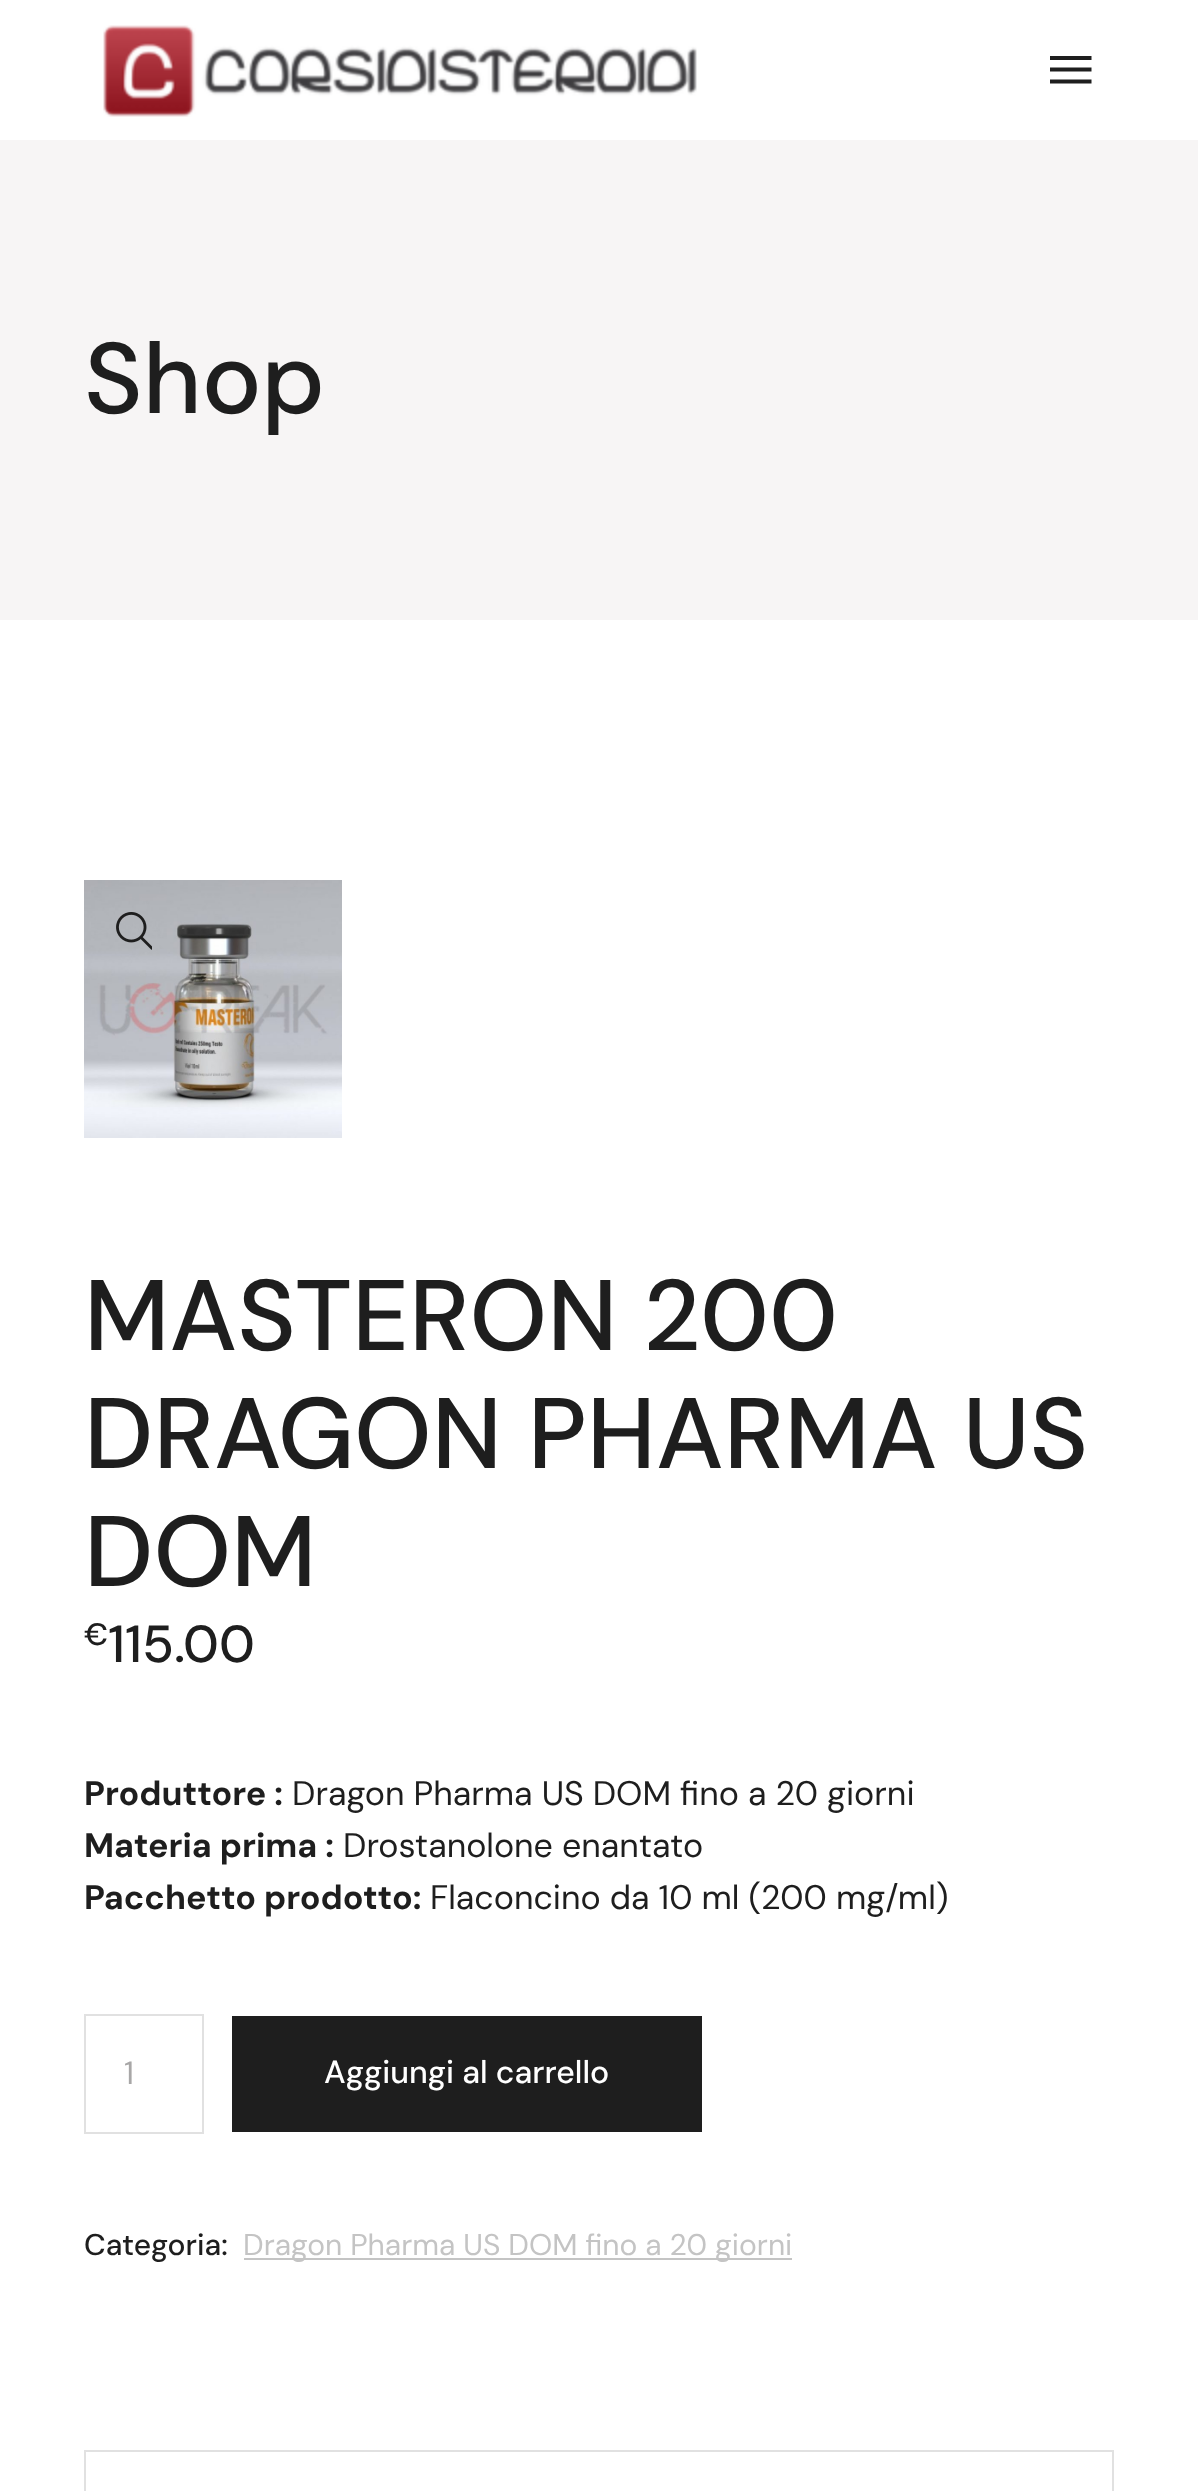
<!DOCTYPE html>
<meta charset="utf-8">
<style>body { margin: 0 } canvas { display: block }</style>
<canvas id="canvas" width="1198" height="2491"></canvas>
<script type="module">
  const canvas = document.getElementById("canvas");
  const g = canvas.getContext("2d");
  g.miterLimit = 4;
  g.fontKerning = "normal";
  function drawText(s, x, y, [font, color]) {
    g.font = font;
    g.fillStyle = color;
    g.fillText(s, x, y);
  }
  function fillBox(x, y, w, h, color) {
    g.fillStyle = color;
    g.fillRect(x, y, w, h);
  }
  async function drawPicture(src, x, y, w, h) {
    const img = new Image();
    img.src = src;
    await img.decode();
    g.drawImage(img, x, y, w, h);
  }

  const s1 = ["500 100px DM Sans", "#1E1E1E"];
  const s2 = ["500 31px DM Sans", "#1E1E1E"];
  const s3 = ["500 52px DM Sans", "#1E1E1E"];
  const s4 = ["bold 34px DM Sans", "#1E1E1E"];
  const s5 = ["34px DM Sans", "#1E1E1E"];
  const s6 = ["32px DM Sans", "#A8A7A7"];
  const s7 = ["500 32px DM Sans", "#FFFFFF"];
  const s8 = ["500 30px DM Sans", "#1E1E1E"];
  const s9 = ["30px DM Sans", "#C4C4C4"];

  fillBox(0, 0, 1198, 2491, "#FFFFFF");
  await drawPicture("pic1.png", 103, 25, 594, 92);
  g.beginPath();
  g.moveTo(1090.5, 57);
  g.lineTo(1090.5, 59);
  g.lineTo(1051, 59);
  g.lineTo(1051, 57);
  g.closePath();
  g.moveTo(1090.5, 68.5);
  g.lineTo(1090.5, 70.5);
  g.lineTo(1051, 70.5);
  g.lineTo(1051, 68.5);
  g.closePath();
  g.moveTo(1090.5, 80.5);
  g.lineTo(1090.5, 82.5);
  g.lineTo(1051, 82.5);
  g.lineTo(1051, 80.5);
  g.closePath();
  g.strokeStyle = "#1E1E1E";
  g.lineWidth = 2;
  g.stroke();
  fillBox(0, 140, 1198, 480, "#F7F5F5");
  drawText("Shop", 84, 413, s1);
  await drawPicture("pic2.png", 84, 880, 258, 258);
  await drawPicture("pic3.png", 116, 912, 36, 38);
  drawText("MASTERON 200", 84, 1350, s1);
  drawText("DRAGON PHARMA US", 84, 1468, s1);
  drawText("DOM", 84, 1586, s1);
  drawText("€", 84, 1645, s2);
  drawText("115.00", 108, 1662, s3);
  drawText("Produttore :", 84, 1805, s4);
  drawText("Dragon Pharma US DOM fino a 20 giorni", 292, 1805, s5);
  drawText("Materia prima :", 84, 1857, s4);
  drawText("Drostanolone enantato", 343, 1857, s5);
  drawText("Pacchetto prodotto:", 84, 1909, s4);
  drawText("Flaconcino da 10 ml (200 mg/ml)", 430, 1909, s5);
  g.strokeStyle = "#E1E1E1";
  g.strokeRect(85, 2015, 118, 118);
  drawText("1", 124, 2084, s6);
  fillBox(232, 2016, 470, 116, "#1E1E1E");
  drawText("Aggiungi al carrello", 324, 2083, s7);
  drawText("Categoria:", 84, 2255, s8);
  fillBox(244, 2258, 548, 2, "#C4C4C4");
  drawText("Dragon Pharma US DOM fino a 20 giorni", 243, 2255, s9);
  g.strokeRect(85, 2451, 1028, 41);
</script>
